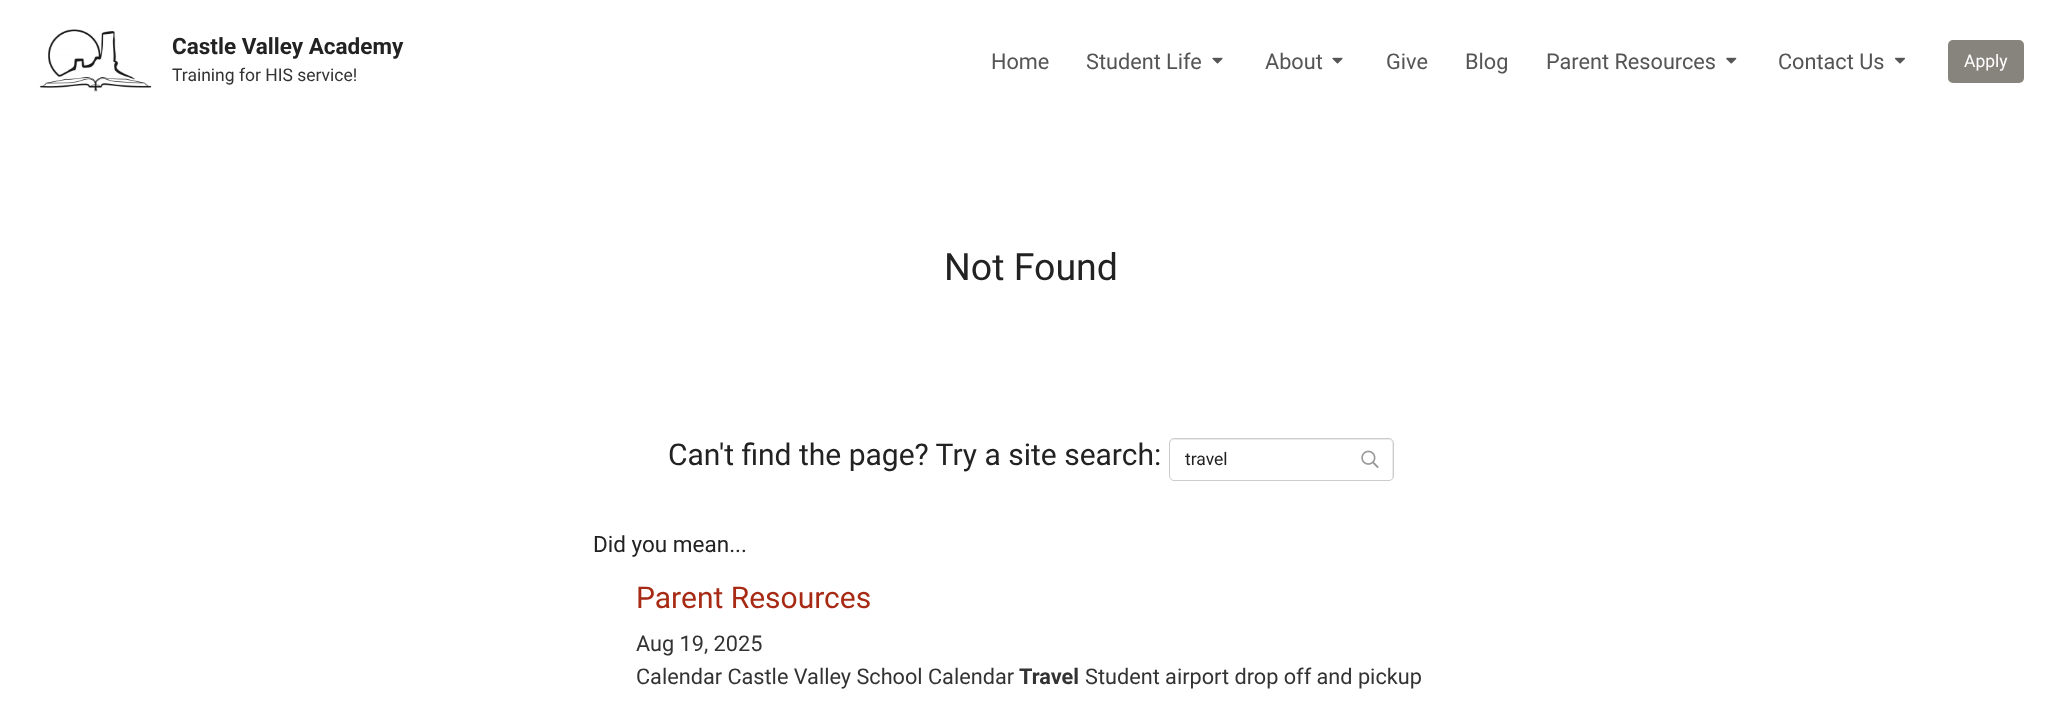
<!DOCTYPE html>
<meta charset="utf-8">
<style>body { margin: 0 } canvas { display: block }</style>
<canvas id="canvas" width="2061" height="704"></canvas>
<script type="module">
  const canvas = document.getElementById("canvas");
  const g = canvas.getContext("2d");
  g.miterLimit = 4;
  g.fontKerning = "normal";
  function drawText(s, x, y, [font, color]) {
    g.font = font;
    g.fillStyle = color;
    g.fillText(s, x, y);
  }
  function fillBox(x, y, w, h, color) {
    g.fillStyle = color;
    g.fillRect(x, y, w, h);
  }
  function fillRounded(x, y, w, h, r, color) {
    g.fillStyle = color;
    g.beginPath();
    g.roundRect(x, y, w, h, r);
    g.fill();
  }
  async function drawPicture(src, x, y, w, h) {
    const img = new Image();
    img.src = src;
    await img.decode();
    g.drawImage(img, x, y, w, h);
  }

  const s1 = ["bold 22.5px Roboto", "#222222"];
  const s2 = ["17.5px Roboto", "#333333"];
  const s3 = ["21.7px Roboto", "#555555"];
  const s4 = ["17.5px Roboto", "#FFFFFF"];
  const s5 = ["37.5px Roboto", "#222222"];
  const s6 = ["30px Roboto", "#222222"];
  const s7 = ["17.5px Roboto", "#222222"];
  const s8 = ["22.5px Roboto", "#222222"];
  const s9 = ["30px Roboto", "#A72A14"];
  const s10 = ["21.7px Roboto", "#333333"];
  const s11 = ["bold 21.7px Roboto", "#333333"];

  fillBox(0, 0, 2061, 704, "#FFFFFF");
  await drawPicture("pic1.png", 39, 29, 113, 63);
  drawText("Castle Valley Academy", 172, 54, s1);
  drawText("Training for HIS service!", 172, 81, s2);
  drawText("Home", 991, 69, s3);
  drawText("Student Life", 1086, 69, s3);
  await drawPicture("pic2.png", 1212, 57, 11, 7);
  drawText("About", 1265, 69, s3);
  await drawPicture("pic2.png", 1332, 57, 11, 7);
  drawText("Give", 1386, 69, s3);
  drawText("Blog", 1465, 69, s3);
  drawText("Parent Resources", 1546, 69, s3);
  await drawPicture("pic3.png", 1726, 57, 11, 7);
  drawText("Contact Us", 1778, 69, s3);
  await drawPicture("pic4.png", 1894, 57, 11, 7);
  fillRounded(1948, 40, 76, 43, 5, "#86847D");
  drawText("Apply", 1964, 67, s4);
  drawText("Not Found", 944, 280, s5);
  drawText("Can't find the page? Try a site search:", 668, 465, s6);
  g.fillStyle = "#EBEBEB";
  g.beginPath();
  g.moveTo(1174, 440);
  g.lineTo(1389, 440);
  g.bezierCurveTo(1391, 440, 1392, 442, 1392, 444);
  g.lineTo(1392, 479);
  g.bezierCurveTo(1393, 478, 1393, 477, 1393, 476);
  g.lineTo(1393, 443);
  g.bezierCurveTo(1393, 441, 1391, 439, 1389, 439);
  g.lineTo(1174, 439);
  g.bezierCurveTo(1172, 439, 1170, 441, 1170, 443);
  g.lineTo(1170, 444);
  g.bezierCurveTo(1170, 442, 1172, 440, 1174, 440);
  g.closePath();
  g.fill();
  g.beginPath();
  g.roundRect(1169.5, 438.5, 224, 42, 4.5);
  g.strokeStyle = "#CCCCCC";
  g.stroke();
  drawText("travel", 1185, 465, s7);
  await drawPicture("pic5.png", 1361, 450, 18, 18);
  drawText("Did you mean...", 593, 552, s8);
  drawText("Parent Resources", 636, 608, s9);
  drawText("Aug 19, 2025", 636, 651, s10);
  drawText("Calendar Castle Valley School Calendar", 636, 684, s10);
  drawText("Travel", 1019, 684, s11);
  drawText("Student airport drop off and pickup", 1085, 684, s10);
</script>
